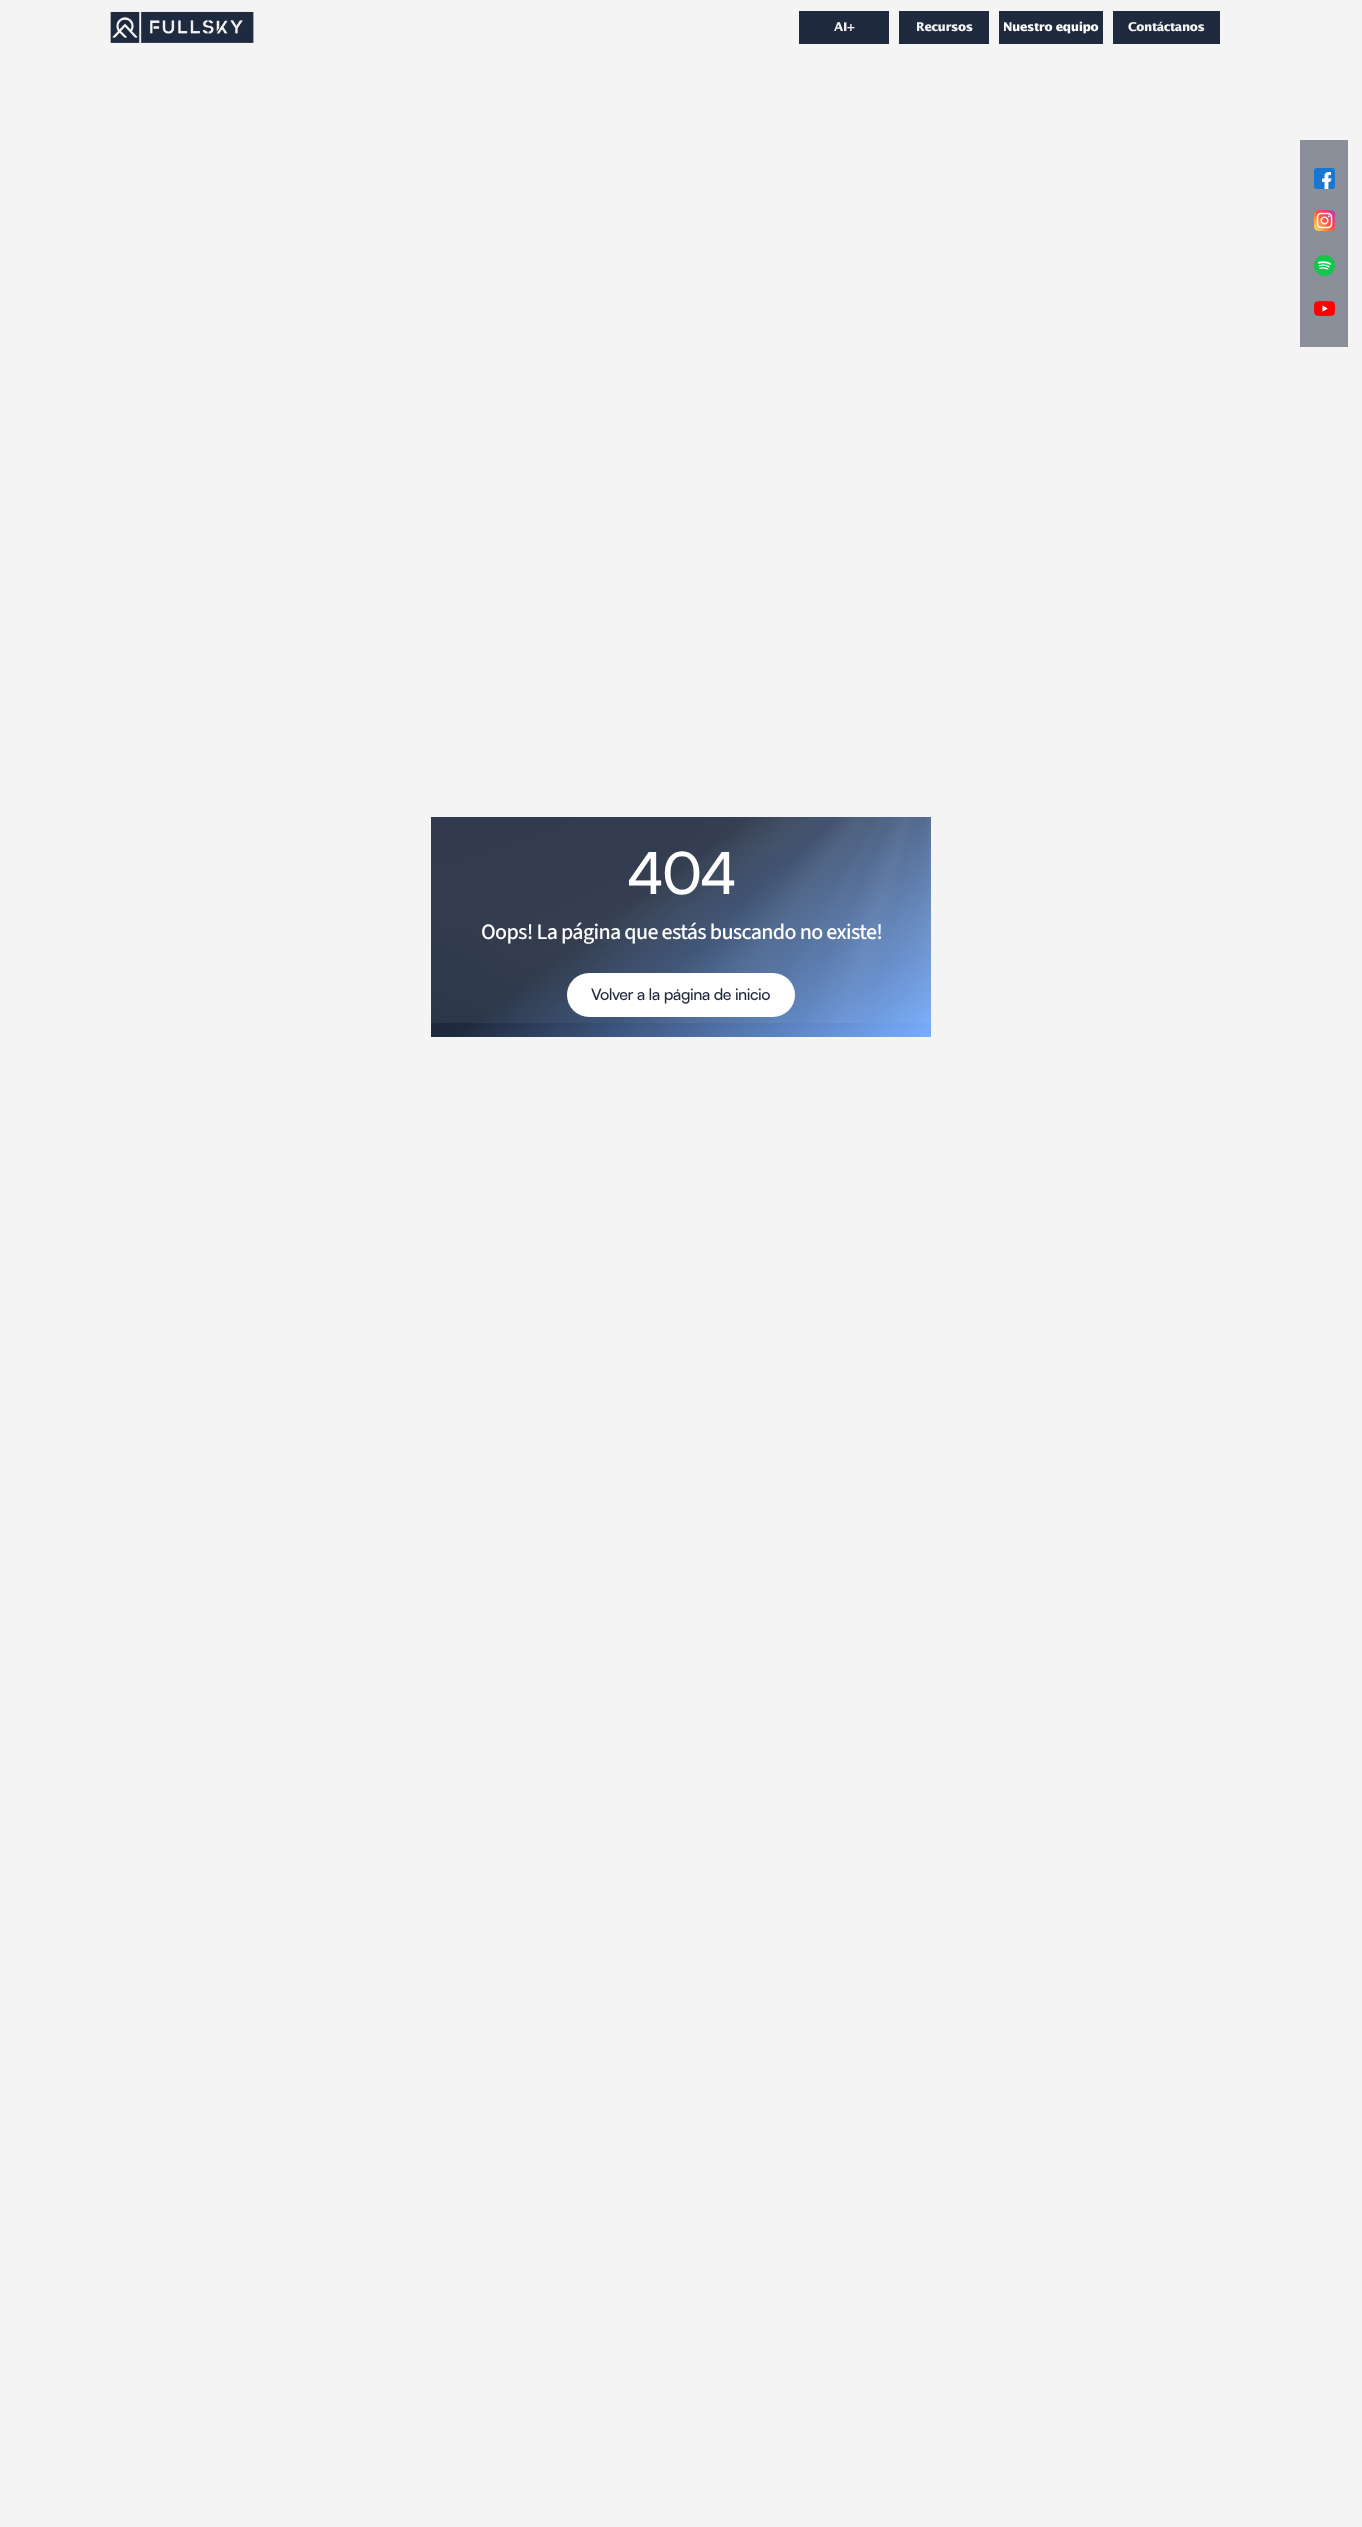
<!DOCTYPE html>
<meta charset="utf-8">
<style>body { margin: 0 } canvas { display: block }</style>
<canvas id="canvas" width="1362" height="2527"></canvas>
<script type="module">
  const canvas = document.getElementById("canvas");
  const g = canvas.getContext("2d");
  g.miterLimit = 4;
  g.fontKerning = "normal";
  function drawText(s, x, y, [font, color]) {
    g.font = font;
    g.fillStyle = color;
    g.fillText(s, x, y);
  }
  function fillBox(x, y, w, h, color) {
    g.fillStyle = color;
    g.fillRect(x, y, w, h);
  }
  function fillRounded(x, y, w, h, r, color) {
    g.fillStyle = color;
    g.beginPath();
    g.roundRect(x, y, w, h, r);
    g.fill();
  }
  async function drawPicture(src, x, y, w, h) {
    const img = new Image();
    img.src = src;
    await img.decode();
    g.drawImage(img, x, y, w, h);
  }
  let gradient;

  const s1 = ["bold 12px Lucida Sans", "#F4F4F4"];
  const s2 = ["bold 12px Lucida Sans", "#FFFFFF"];
  const s3 = ["500 58px Satoshi", "#FFFFFF"];
  const s4 = ["500 22px 'Source Sans 3'", "#FFFFFF"];
  const s5 = ["500 16px Satoshi", "#1F2A3E"];

  fillBox(0, 0, 1362, 2527, "#F4F4F4");
  await drawPicture("pic1.png", 110, 11, 144, 32);
  fillBox(799, 11, 90, 33, "#1F2A3E");
  g.letterSpacing = "-0.4px";
  drawText("AI+", 834, 31, s1);
  fillBox(899, 11, 90, 33, "#1F2A3E");
  drawText("Recursos", 916, 31, s1);
  fillBox(999, 11, 104, 33, "#1F2A3E");
  drawText("Nuestro equipo", 1003, 31, s2);
  fillBox(1113, 11, 107, 33, "#1F2A3E");
  drawText("Contáctanos", 1128, 31, s1);
  gradient = g.createLinearGradient(542, 736, 820, 1118);
  gradient.addColorStop(0.4, "#1F2A3E");
  gradient.addColorStop(1, "#78AEFF");
  g.fillStyle = gradient;
  g.fillRect(431, 817, 500, 220);
  g.letterSpacing = "-2px";
  drawText("404", 627, 894, s3);
  g.letterSpacing = "-0.65px";
  drawText("Oops! La página que estás buscando no existe!", 481, 939, s4);
  await drawPicture("pic2.png", 431, 817, 500, 206);
  fillRounded(567, 973, 228, 44, 22, "#FFFFFF");
  g.letterSpacing = "-0.5px";
  drawText("Volver a la página de inicio", 591, 1000, s5);
  fillBox(1300, 140, 48, 207, "#8A8F99");
  await drawPicture("pic3.png", 1314, 168, 21, 21);
  await drawPicture("pic4.png", 1314, 210, 21, 21);
  await drawPicture("pic5.png", 1314, 255, 21, 21);
  await drawPicture("pic6.png", 1314, 300, 21, 17);
</script>
